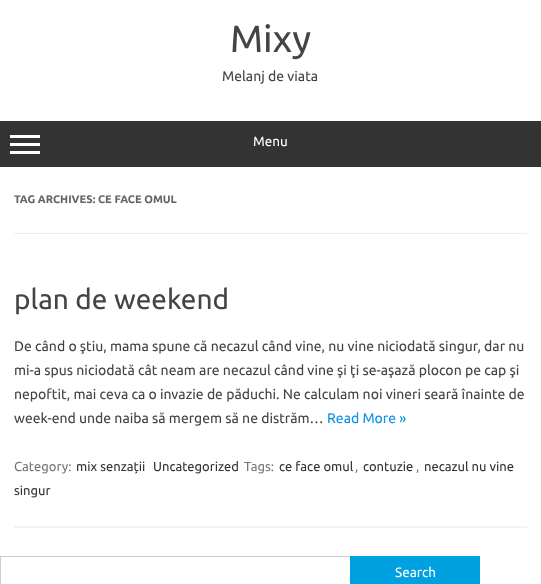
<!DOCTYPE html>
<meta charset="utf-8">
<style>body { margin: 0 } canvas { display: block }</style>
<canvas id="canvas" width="541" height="584"></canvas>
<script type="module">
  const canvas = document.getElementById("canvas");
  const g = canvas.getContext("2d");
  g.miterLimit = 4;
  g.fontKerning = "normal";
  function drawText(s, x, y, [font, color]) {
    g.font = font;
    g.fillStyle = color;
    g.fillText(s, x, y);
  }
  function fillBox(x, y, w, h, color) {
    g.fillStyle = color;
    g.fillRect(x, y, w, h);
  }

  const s1 = ["38px Ubuntu", "#444444"];
  const s2 = ["14px Ubuntu", "#444444"];
  const s3 = ["13.5px Ubuntu", "#FFFFFF"];
  const s4 = ["bold 11px Ubuntu", "#636363"];
  const s5 = ["28px Ubuntu", "#444444"];
  const s6 = ["14px Ubuntu", "#0B91EA"];
  const s7 = ["13px Ubuntu", "#757575"];
  const s8 = ["13px Ubuntu", "#333333"];

  fillBox(0, 0, 541, 584, "#FFFFFF");
  drawText("Mixy", 230, 52, s1);
  drawText("Melanj de viata", 222, 81, s2);
  fillBox(0, 121, 541, 46, "#333333");
  fillBox(10, 135, 30, 3, "#FFFFFF");
  fillBox(10, 143, 30, 3, "#FFFFFF");
  fillBox(10, 151, 30, 3, "#FFFFFF");
  drawText("Menu", 253, 146, s3);
  fillBox(14, 233, 513, 1, "#EDEDED");
  drawText("TAG ARCHIVES: CE FACE OMUL", 14, 203, s4);
  fillBox(14, 526, 513, 2, "#F3F3F3");
  drawText("plan de weekend", 14, 309, s5);
  drawText("De când o ştiu, mama spune că necazul când vine, nu vine niciodată singur, dar nu", 14, 351, s2);
  drawText("mi-a spus niciodată cât neam are necazul când vine şi ţi se-aşază plocon pe cap şi", 14, 375, s2);
  drawText("nepoftit, mai ceva ca o invazie de păduchi. Ne calculam noi vineri seară înainte de", 14, 399, s2);
  drawText("week-end unde naiba să mergem să ne distrăm…", 14, 423, s2);
  drawText("Read More »", 327, 423, s6);
  drawText("Category:", 14, 471, s7);
  drawText("mix senzații", 76, 471, s8);
  drawText("Uncategorized", 153, 471, s8);
  drawText("Tags:", 244, 471, s7);
  drawText("ce face omul", 279, 471, s8);
  drawText(",", 355, 471, s7);
  drawText("contuzie", 363, 471, s8);
  drawText(",", 416, 471, s7);
  drawText("necazul nu vine", 424, 471, s8);
  drawText("singur", 14, 495, s8);
  g.strokeStyle = "#CCCCCC";
  g.strokeRect(0.5, 556.5, 351, 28);
  fillBox(350, 556, 130, 28, "#00A1E0");
  drawText("Search", 395, 577, s3);
</script>
